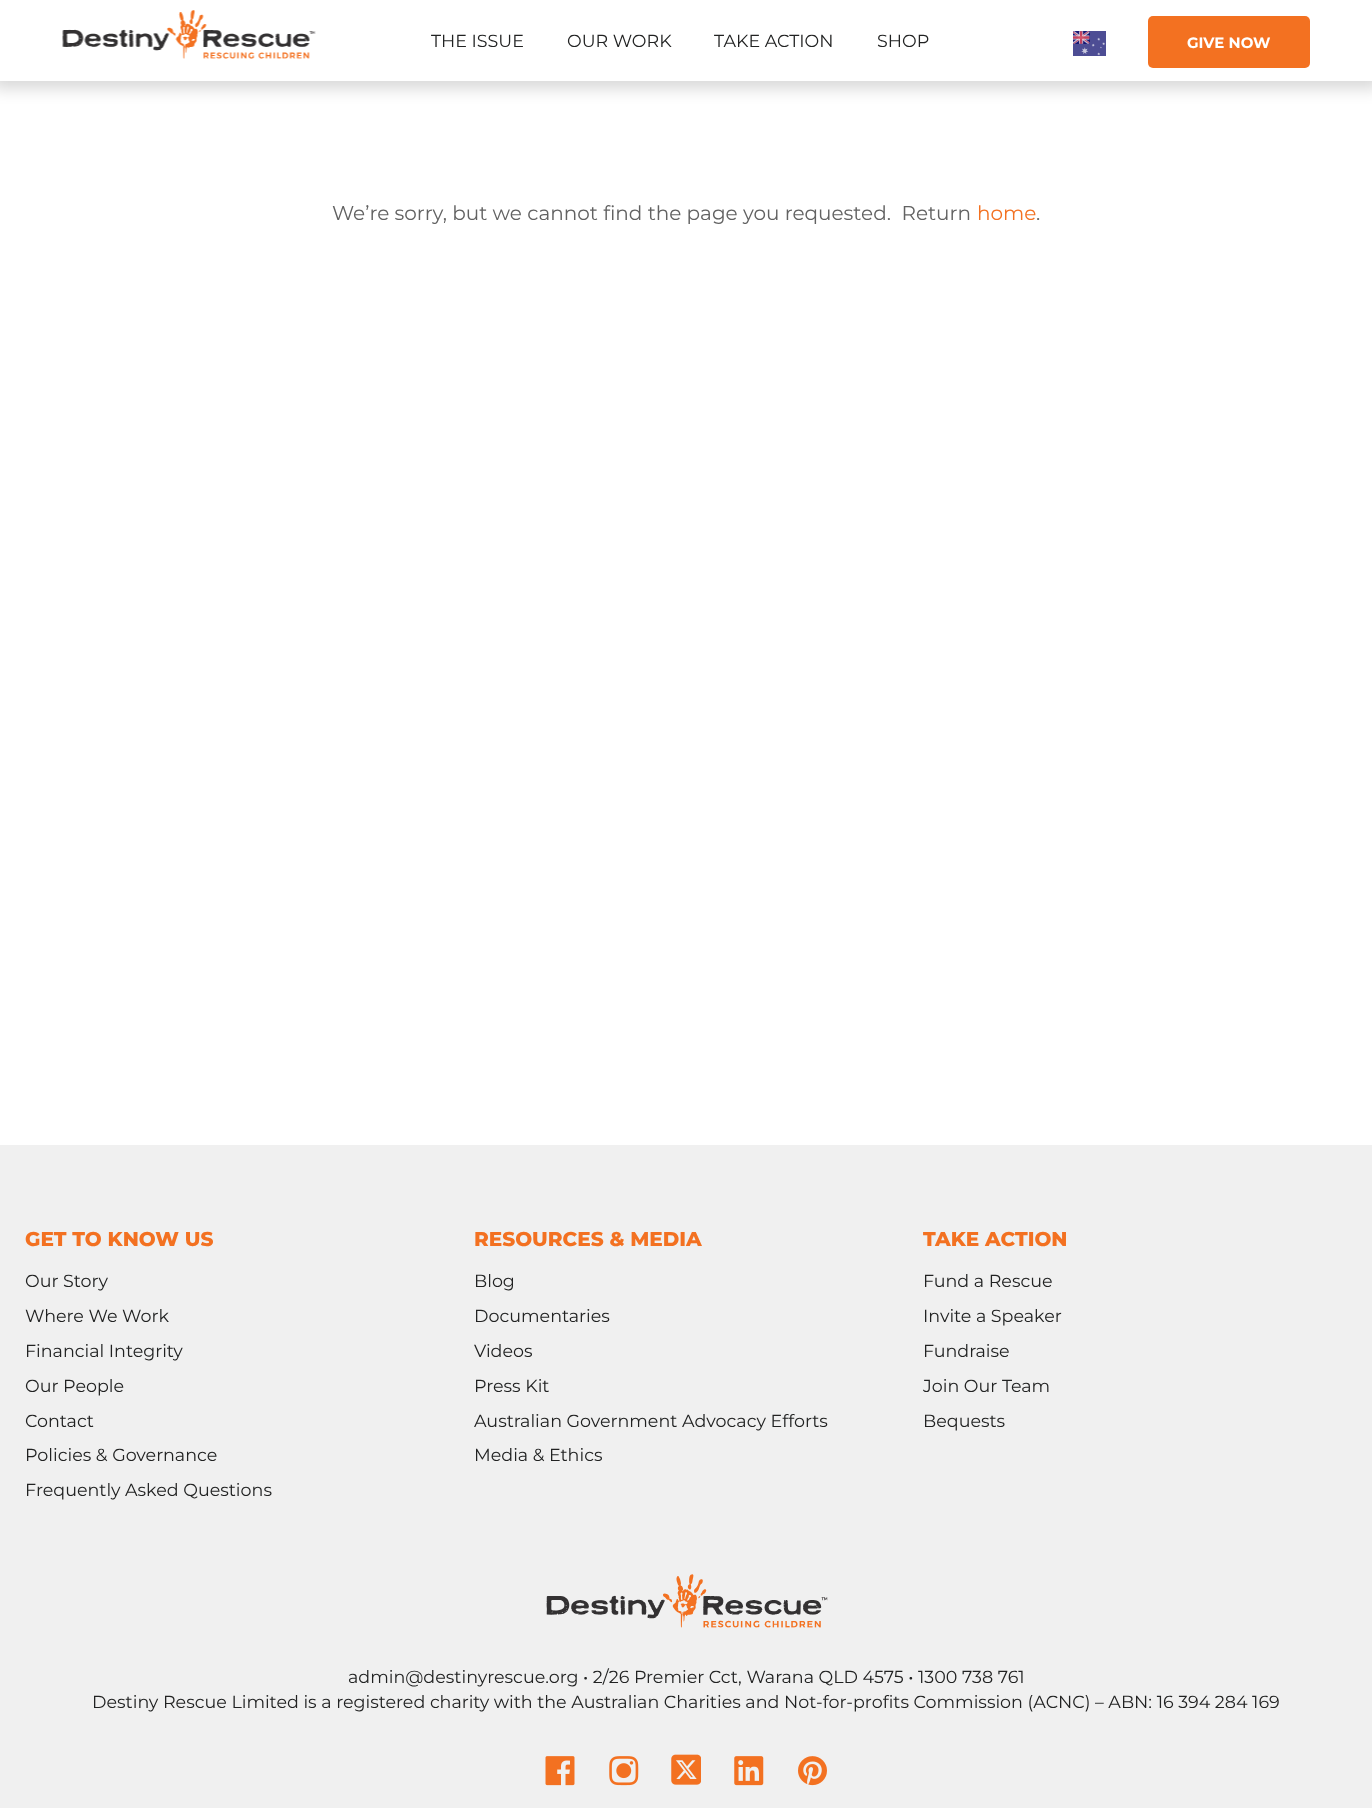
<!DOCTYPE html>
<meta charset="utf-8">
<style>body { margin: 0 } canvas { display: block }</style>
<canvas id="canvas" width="1372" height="1808"></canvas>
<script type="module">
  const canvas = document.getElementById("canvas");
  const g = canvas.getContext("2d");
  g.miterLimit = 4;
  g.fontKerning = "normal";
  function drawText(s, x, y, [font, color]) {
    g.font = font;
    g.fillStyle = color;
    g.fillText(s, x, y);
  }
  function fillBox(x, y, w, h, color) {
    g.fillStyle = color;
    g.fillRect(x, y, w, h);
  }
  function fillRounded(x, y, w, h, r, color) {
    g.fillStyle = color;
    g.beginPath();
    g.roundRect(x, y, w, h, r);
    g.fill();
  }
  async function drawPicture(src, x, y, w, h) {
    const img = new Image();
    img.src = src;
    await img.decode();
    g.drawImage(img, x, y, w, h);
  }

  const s1 = ["17.5px Montserrat", "#212222"];
  const s2 = ["bold 15px Montserrat", "#FFFFFF"];
  const s3 = ["20px Montserrat", "#626262"];
  const s4 = ["20px Montserrat", "#F37121"];
  const s5 = ["800 20px Montserrat", "#F37121"];

  fillBox(0, 0, 1372, 1808, "#FFFFFF");
  g.fillStyle = "rgba(0, 0, 0, 0.15)";
  g.filter = "blur(7.5px)";
  g.beginPath();
  g.rect(-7, -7, 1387, 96);
  g.fill();
  g.filter = "none";
  fillBox(0, 0, 1372, 81, "#FFFFFF");
  await drawPicture("pic1.png", 1073, 31, 33, 25);
  await drawPicture("pic2.png", 62, 10, 254, 49);
  drawText("THE ISSUE", 431, 47, s1);
  drawText("OUR WORK", 567, 47, s1);
  drawText("TAKE ACTION", 714, 47, s1);
  drawText("SHOP", 877, 47, s1);
  fillRounded(1148, 16, 162, 52, 5, "#F37121");
  drawText("GIVE NOW", 1187, 48, s2);
  drawText("We’re sorry, but we cannot find the page you requested.  Return", 332, 220, s3);
  drawText("home", 977, 220, s4);
  drawText(".", 1036, 220, s3);
  fillBox(0, 1145, 1372, 663, "#F0F0F0");
  drawText("GET TO KNOW US", 25, 1246, s5);
  drawText("Our Story", 25, 1287, s1);
  drawText("Where We Work", 25, 1322, s1);
  drawText("Financial Integrity", 25, 1357, s1);
  drawText("Our People", 25, 1392, s1);
  drawText("Contact", 25, 1427, s1);
  drawText("Policies & Governance", 25, 1461, s1);
  drawText("Frequently Asked Questions", 25, 1496, s1);
  drawText("RESOURCES & MEDIA", 474, 1246, s5);
  drawText("Blog", 474, 1287, s1);
  drawText("Documentaries", 474, 1322, s1);
  drawText("Videos", 474, 1357, s1);
  drawText("Press Kit", 474, 1392, s1);
  drawText("Australian Government Advocacy Efforts", 474, 1427, s1);
  drawText("Media & Ethics", 474, 1461, s1);
  drawText("TAKE ACTION", 923, 1246, s5);
  drawText("Fund a Rescue", 923, 1287, s1);
  drawText("Invite a Speaker", 923, 1322, s1);
  drawText("Fundraise", 923, 1357, s1);
  drawText("Join Our Team", 923, 1392, s1);
  drawText("Bequests", 923, 1427, s1);
  await drawPicture("pic3.png", 546, 1574, 282, 54);
  drawText("admin@destinyrescue.org • 2/26 Premier Cct, Warana QLD 4575 • 1300 738 761", 348, 1683, s1);
  drawText("Destiny Rescue Limited is a registered charity with the Australian Charities and Not-for-profits Commission (ACNC) – ABN: 16 394 284 169", 92, 1708, s1);
  await drawPicture("pic4.png", 545, 1756, 30, 30);
  await drawPicture("pic5.png", 609, 1756, 30, 30);
  await drawPicture("pic6.png", 671, 1754, 30, 31);
  await drawPicture("pic7.png", 734, 1756, 30, 30);
  await drawPicture("pic8.png", 798, 1756, 29, 30);
</script>
